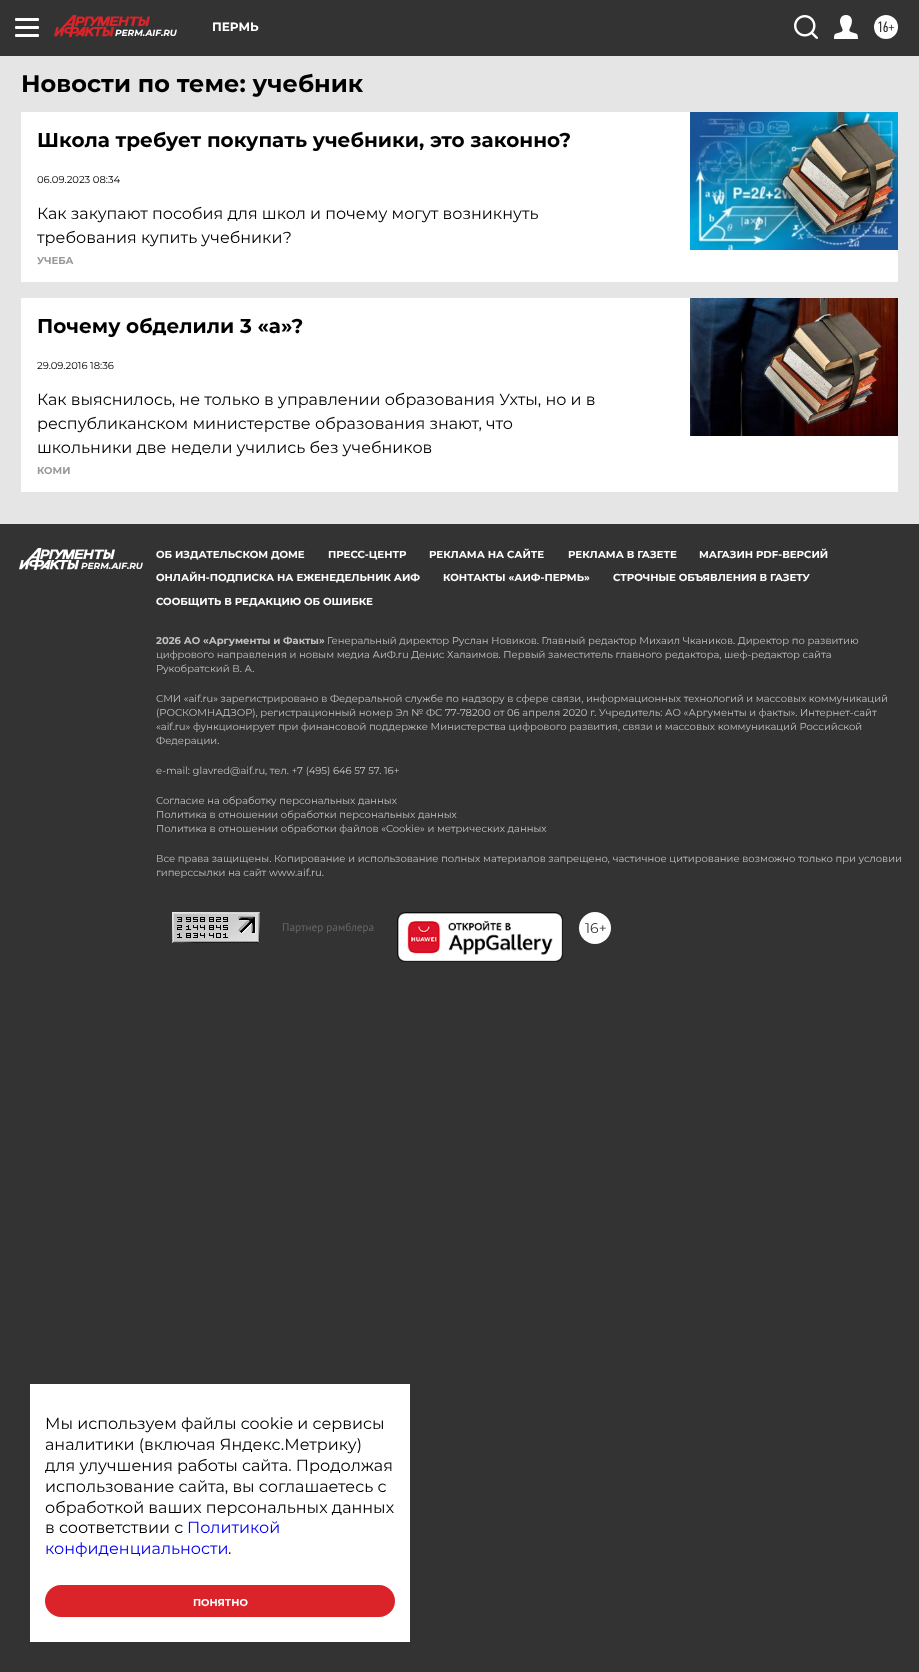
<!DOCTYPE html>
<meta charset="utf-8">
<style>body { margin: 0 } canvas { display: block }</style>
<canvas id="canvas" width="919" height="1672"></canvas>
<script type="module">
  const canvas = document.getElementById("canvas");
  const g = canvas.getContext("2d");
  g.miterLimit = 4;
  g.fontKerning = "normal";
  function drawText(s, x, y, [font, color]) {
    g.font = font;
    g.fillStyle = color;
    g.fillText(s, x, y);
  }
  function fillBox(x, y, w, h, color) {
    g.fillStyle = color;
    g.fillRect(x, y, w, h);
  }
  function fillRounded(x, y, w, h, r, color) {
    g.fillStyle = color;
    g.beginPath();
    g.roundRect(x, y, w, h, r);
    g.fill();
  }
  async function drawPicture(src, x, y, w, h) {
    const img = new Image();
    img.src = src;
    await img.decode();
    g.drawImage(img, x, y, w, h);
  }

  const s1 = ["bold 12px Montserrat", "#FFFFFF"];
  const s2 = ["15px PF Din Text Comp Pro", "#333333"];
  const s3 = ["italic bold 9px Montserrat", "#FFFFFF"];
  const s4 = ["bold 24px Montserrat", "#000000"];
  const s5 = ["bold 20px Montserrat", "#000000"];
  const s6 = ["10px Montserrat", "#000000"];
  const s7 = ["16px Montserrat", "#000000"];
  const s8 = ["bold 10px Montserrat", "#999999"];
  const s9 = ["bold 10.2px Montserrat", "#FFFFFF"];
  const s10 = ["bold 10px Montserrat", "#C2C2C2"];
  const s11 = ["10px Montserrat", "#C2C2C2"];
  const s12 = ["11.25px PT Sans", "#666666"];
  const s13 = ["14px Montserrat", "#333333"];
  const s14 = ["16px Montserrat", "#0000EE"];
  const s15 = ["bold 10px Montserrat", "#FFFFFF"];

  fillBox(0, 0, 919, 1672, "#333333");
  fillBox(0, 56, 919, 468, "#E5E5E5");
  fillRounded(15, 18, 24, 3, 1, "#FFFFFF");
  fillRounded(15, 26, 24, 3, 1, "#FFFFFF");
  fillRounded(15, 34, 24, 3, 1, "#FFFFFF");
  drawText("ПЕРМЬ", 212, 31, s1);
  await drawPicture("pic1.png", 794, 15, 24, 24);
  await drawPicture("pic2.png", 834, 15, 24, 24);
  g.beginPath();
  g.arc(886, 27, 12, 0, Math.PI * 2);
  g.fill();
  drawText("16+", 877, 32, s2);
  await drawPicture("pic3.png", 54, 15, 96, 22);
  drawText("PERM.AIF.RU", 115, 36, s3);
  drawText("Новости по теме: учебник", 21, 92, s4);
  fillBox(21, 112, 877, 170, "#FFFFFF");
  drawText("Школа требует покупать учебники, это законно?", 37, 147, s5);
  drawText("06.09.2023 08:34", 37, 183, s6);
  drawText("Как закупают пособия для школ и почему могут возникнуть", 37, 219, s7);
  drawText("требования купить учебники?", 37, 243, s7);
  await drawPicture("pic4.png", 690, 112, 208, 138);
  drawText("УЧЕБА", 37, 264, s8);
  fillBox(21, 298, 877, 194, "#FFFFFF");
  drawText("Почему обделили 3 «а»?", 37, 333, s5);
  drawText("29.09.2016 18:36", 37, 369, s6);
  drawText("Как выяснилось, не только в управлении образования Ухты, но и в", 37, 405, s7);
  drawText("республиканском министерстве образования знают, что", 37, 429, s7);
  drawText("школьники две недели учились без учебников", 37, 453, s7);
  await drawPicture("pic5.png", 690, 298, 208, 138);
  drawText("КОМИ", 37, 474, s8);
  await drawPicture("pic6.png", 19, 548, 96, 22);
  drawText("PERM.AIF.RU", 81, 569, s3);
  drawText("ОБ ИЗДАТЕЛЬСКОМ ДОМЕ", 156, 558, s9);
  drawText("ПРЕСС-ЦЕНТР", 328, 558, s9);
  drawText("РЕКЛАМА НА САЙТЕ", 429, 558, s9);
  drawText("РЕКЛАМА В ГАЗЕТЕ", 568, 558, s9);
  drawText("МАГАЗИН PDF-ВЕРСИЙ", 699, 558, s9);
  drawText("ОНЛАЙН-ПОДПИСКА НА ЕЖЕНЕДЕЛЬНИК АИФ", 156, 581, s9);
  drawText("КОНТАКТЫ «АИФ-ПЕРМЬ»", 443, 581, s9);
  drawText("СТРОЧНЫЕ ОБЪЯВЛЕНИЯ В ГАЗЕТУ", 613, 581, s9);
  drawText("СООБЩИТЬ В РЕДАКЦИЮ ОБ ОШИБКЕ", 156, 605, s9);
  drawText("2026 АО «Аргументы и Факты»", 156, 644, s10);
  drawText("Генеральный директор Руслан Новиков. Главный редактор Михаил Чкаников. Директор по развитию", 327, 644, s11);
  drawText("цифрового направления и новым медиа АиФ.ru Денис Халаимов. Первый заместитель главного редактора, шеф-редактор сайта", 156, 658, s11);
  drawText("Рукобратский В. А.", 156, 672, s11);
  drawText("СМИ «aif.ru» зарегистрировано в Федеральной службе по надзору в сфере связи, информационных технологий и массовых коммуникаций", 156, 702, s11);
  drawText("(РОСКОМНАДЗОР), регистрационный номер Эл № ФС 77-78200 от 06 апреля 2020 г. Учредитель: АО «Аргументы и факты». Интернет-сайт", 156, 716, s11);
  drawText("«aif.ru» функционирует при финансовой поддержке Министерства цифрового развития, связи и массовых коммуникаций Российской", 156, 730, s11);
  drawText("Федерации.", 156, 744, s11);
  drawText("e-mail: glavred@aif.ru, тел. +7 (495) 646 57 57. 16+", 156, 774, s11);
  drawText("Согласие на обработку персональных данных", 156, 804, s11);
  drawText("Политика в отношении обработки персональных данных", 156, 818, s11);
  drawText("Политика в отношении обработки файлов «Cookie» и метрических данных", 156, 832, s11);
  drawText("Все права защищены. Копирование и использование полных материалов запрещено, частичное цитирование возможно только при условии", 156, 862, s11);
  drawText("гиперссылки на сайт www.aif.ru.", 156, 876, s11);
  await drawPicture("pic7.png", 172, 912, 88, 31);
  drawText("Партнер рамблера", 282, 931, s12);
  await drawPicture("pic8.png", 397, 912, 166, 50);
  g.fillStyle = "#FFFFFF";
  g.beginPath();
  g.arc(595, 928, 16, 0, Math.PI * 2);
  g.fill();
  drawText("16+", 585, 933, s13);
  fillBox(30, 1384, 380, 258, "#FFFFFF");
  drawText("Мы используем файлы cookie и сервисы", 45, 1429, s7);
  drawText("аналитики (включая Яндекс.Метрику)", 45, 1450, s7);
  drawText("для улучшения работы сайта. Продолжая", 45, 1471, s7);
  drawText("использование сайта, вы соглашаетесь с", 45, 1492, s7);
  drawText("обработкой ваших персональных данных", 45, 1513, s7);
  drawText("в соответствии с", 45, 1533, s7);
  drawText("Политикой", 187, 1533, s14);
  drawText("конфиденциальности", 45, 1554, s14);
  drawText(".", 228, 1554, s7);
  g.fillStyle = "#DA2429";
  g.beginPath();
  g.roundRect(46, 1586, 348, 30, 15);
  g.fill();
  g.strokeStyle = "#DA2429";
  g.lineWidth = 2;
  g.stroke();
  drawText("ПОНЯТНО", 193, 1606, s15);
</script>
